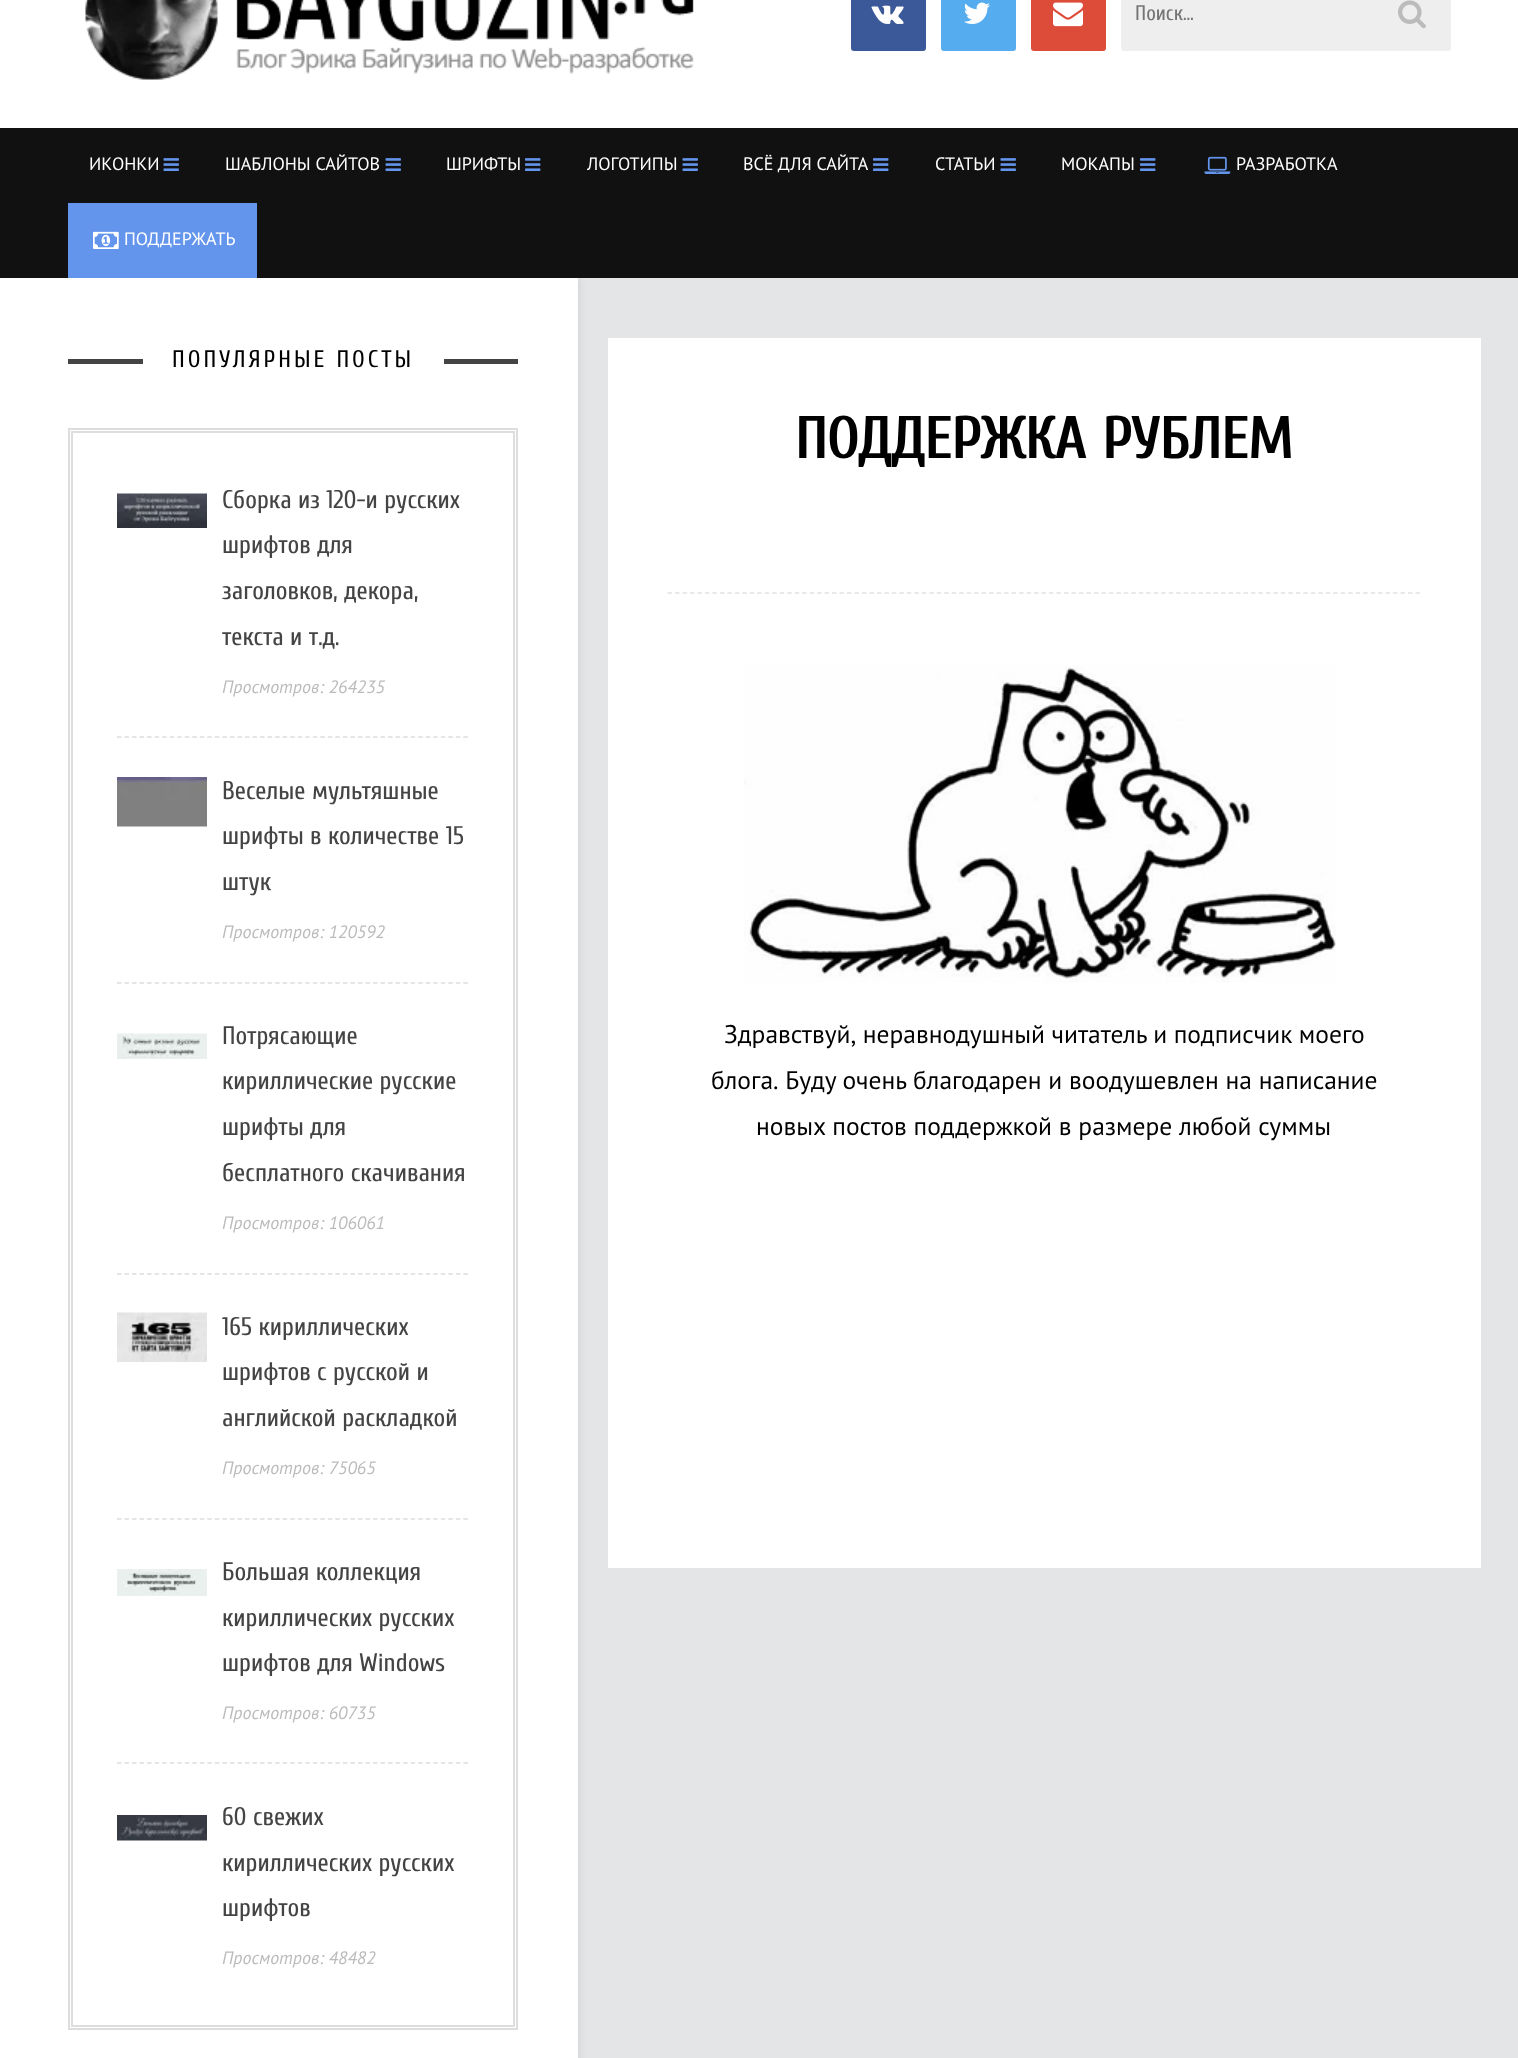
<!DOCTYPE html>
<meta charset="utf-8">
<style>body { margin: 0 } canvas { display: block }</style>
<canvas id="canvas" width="1518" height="2058"></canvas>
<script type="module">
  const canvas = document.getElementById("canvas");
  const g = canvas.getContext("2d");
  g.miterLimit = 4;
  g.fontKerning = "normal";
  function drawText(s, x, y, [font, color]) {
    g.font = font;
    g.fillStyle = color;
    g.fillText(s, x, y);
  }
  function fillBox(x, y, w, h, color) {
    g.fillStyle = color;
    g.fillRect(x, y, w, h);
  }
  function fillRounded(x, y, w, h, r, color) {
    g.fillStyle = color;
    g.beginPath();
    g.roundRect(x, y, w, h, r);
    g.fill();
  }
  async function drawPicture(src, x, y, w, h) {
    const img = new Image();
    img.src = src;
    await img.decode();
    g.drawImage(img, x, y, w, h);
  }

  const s1 = ["21px Cuprum", "#757575"];
  const s2 = ["18px PT Sans", "#FFFFFF"];
  const s3 = ["24px Cuprum", "#000000"];
  const s4 = ["25.5px Cuprum", "#444444"];
  const s5 = ["italic 18px PT Sans", "#BBBBBB"];
  const s6 = ["bold 60px Cuprum", "#000000"];
  const s7 = ["25.5px PT Sans", "#000000"];

  fillBox(0, 0, 1518, 2058, "#E4E5E6");
  fillBox(0, 0, 1518, 128, "#FFFFFF");
  await drawPicture("pic1.png", 85, 0, 609, 80);
  fillRounded(851, -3, 75, 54, 3, "#3B5998");
  await drawPicture("pic2.png", 871, 5, 33, 19);
  fillRounded(941, -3, 75, 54, 3, "#55ACEE");
  await drawPicture("pic3.png", 964, 2, 26, 22);
  fillRounded(1031, -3, 75, 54, 3, "#DD4B39");
  await drawPicture("pic4.png", 1053, 2, 30, 25);
  fillRounded(1121, -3, 330, 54, 3, "#EEEEEE");
  drawText("Поиск…", 1135, 20, s1);
  await drawPicture("pic5.png", 1398, 0, 28, 29);
  g.fillStyle = "rgba(0, 0, 0, 0.1)";
  g.filter = "blur(4px)";
  g.beginPath();
  g.rect(68, 278, 510, 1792);
  g.fill();
  g.filter = "none";
  fillBox(0, 128, 1518, 150, "#111111");
  drawText("ИКОНКИ", 89, 170, s2);
  await drawPicture("pic6.png", 163, 158, 16, 13);
  drawText("ШАБЛОНЫ САЙТОВ", 225, 170, s2);
  await drawPicture("pic6.png", 385, 158, 16, 13);
  drawText("ШРИФТЫ", 446, 170, s2);
  await drawPicture("pic7.png", 525, 158, 16, 13);
  drawText("ЛОГОТИПЫ", 587, 170, s2);
  await drawPicture("pic6.png", 682, 158, 16, 13);
  drawText("ВСЁ ДЛЯ САЙТА", 743, 170, s2);
  await drawPicture("pic7.png", 873, 158, 16, 13);
  drawText("СТАТЬИ", 935, 170, s2);
  await drawPicture("pic6.png", 1000, 158, 16, 13);
  drawText("МОКАПЫ", 1061, 170, s2);
  await drawPicture("pic7.png", 1140, 158, 16, 13);
  await drawPicture("pic8.png", 1204, 156, 27, 18);
  drawText("РАЗРАБОТКА", 1236, 170, s2);
  fillBox(68, 203, 189, 75, "#6495ED");
  await drawPicture("pic9.png", 93, 231, 26, 18);
  drawText("ПОДДЕРЖАТЬ", 124, 245, s2);
  fillBox(0, 278, 578, 1780, "#FFFFFF");
  fillBox(68, 359, 450, 5, "#444444");
  fillBox(143, 359, 301, 5, "#FFFFFF");
  g.letterSpacing = "3px";
  drawText("ПОПУЛЯРНЫЕ ПОСТЫ", 172, 367, s3);
  g.strokeStyle = "#DDDDDD";
  g.lineWidth = 2;
  g.strokeRect(69, 429, 448, 1600);
  g.strokeRect(72, 432, 442, 1594);
  g.beginPath();
  g.moveTo(117, 737);
  g.lineTo(468, 737);
  g.lineWidth = 1.5;
  g.setLineDash([4.5, 3.03]);
  g.stroke();
  await drawPicture("pic10.png", 117, 493, 90, 35);
  g.letterSpacing = "0px";
  drawText("Сборка из 120-и русских", 222, 508, s4);
  drawText("шрифтов для", 222, 553, s4);
  drawText("заголовков, декора,", 222, 599, s4);
  drawText("текста и т.д.", 222, 645, s4);
  drawText("Просмотров: 264235", 222, 693, s5);
  g.beginPath();
  g.moveTo(117, 983);
  g.lineTo(468, 983);
  g.stroke();
  await drawPicture("pic11.png", 117, 777, 90, 50);
  drawText("Веселые мультяшные", 222, 799, s4);
  drawText("шрифты в количестве 15", 222, 844, s4);
  drawText("штук", 222, 890, s4);
  drawText("Просмотров: 120592", 222, 938, s5);
  g.beginPath();
  g.moveTo(117, 1274);
  g.lineTo(468, 1274);
  g.stroke();
  await drawPicture("pic12.png", 117, 1033, 90, 26);
  drawText("Потрясающие", 222, 1044, s4);
  drawText("кириллические русские", 222, 1089, s4);
  drawText("шрифты для", 222, 1135, s4);
  drawText("бесплатного скачивания", 222, 1181, s4);
  drawText("Просмотров: 106061", 222, 1229, s5);
  g.beginPath();
  g.moveTo(117, 1519);
  g.lineTo(468, 1519);
  g.stroke();
  await drawPicture("pic13.png", 117, 1312, 90, 50);
  drawText("165 кириллических", 222, 1335, s4);
  drawText("шрифтов с русской и", 222, 1380, s4);
  drawText("английской раскладкой", 222, 1426, s4);
  drawText("Просмотров: 75065", 222, 1474, s5);
  g.beginPath();
  g.moveTo(117, 1763);
  g.lineTo(468, 1763);
  g.stroke();
  await drawPicture("pic14.png", 117, 1569, 90, 27);
  drawText("Большая коллекция", 222, 1580, s4);
  drawText("кириллических русских", 222, 1626, s4);
  drawText("шрифтов для Windows", 222, 1671, s4);
  drawText("Просмотров: 60735", 222, 1719, s5);
  await drawPicture("pic15.png", 117, 1815, 90, 26);
  drawText("60 свежих", 222, 1825, s4);
  drawText("кириллических русских", 222, 1871, s4);
  drawText("шрифтов", 222, 1916, s4);
  drawText("Просмотров: 48482", 222, 1964, s5);
  fillBox(608, 338, 873, 1230, "#FFFFFF");
  g.beginPath();
  g.moveTo(667.5, 593);
  g.lineTo(1420.5, 593);
  g.strokeStyle = "#E2E2E2";
  g.setLineDash([4.5, 2.98]);
  g.stroke();
  g.letterSpacing = "-1.5px";
  g.wordSpacing = "3px";
  drawText("ПОДДЕРЖКА РУБЛЕМ", 795, 458, s6);
  await drawPicture("pic16.png", 744, 665, 592, 318);
  g.letterSpacing = "0px";
  g.wordSpacing = "-0.25px";
  drawText("Здравствуй, неравнодушный читатель и подписчик моего", 724, 1043, s7);
  g.wordSpacing = "0px";
  drawText("блога. Буду очень благодарен и воодушевлен на написание", 711, 1089, s7);
  drawText("новых постов поддержкой в размере любой суммы", 756, 1135, s7);
</script>
